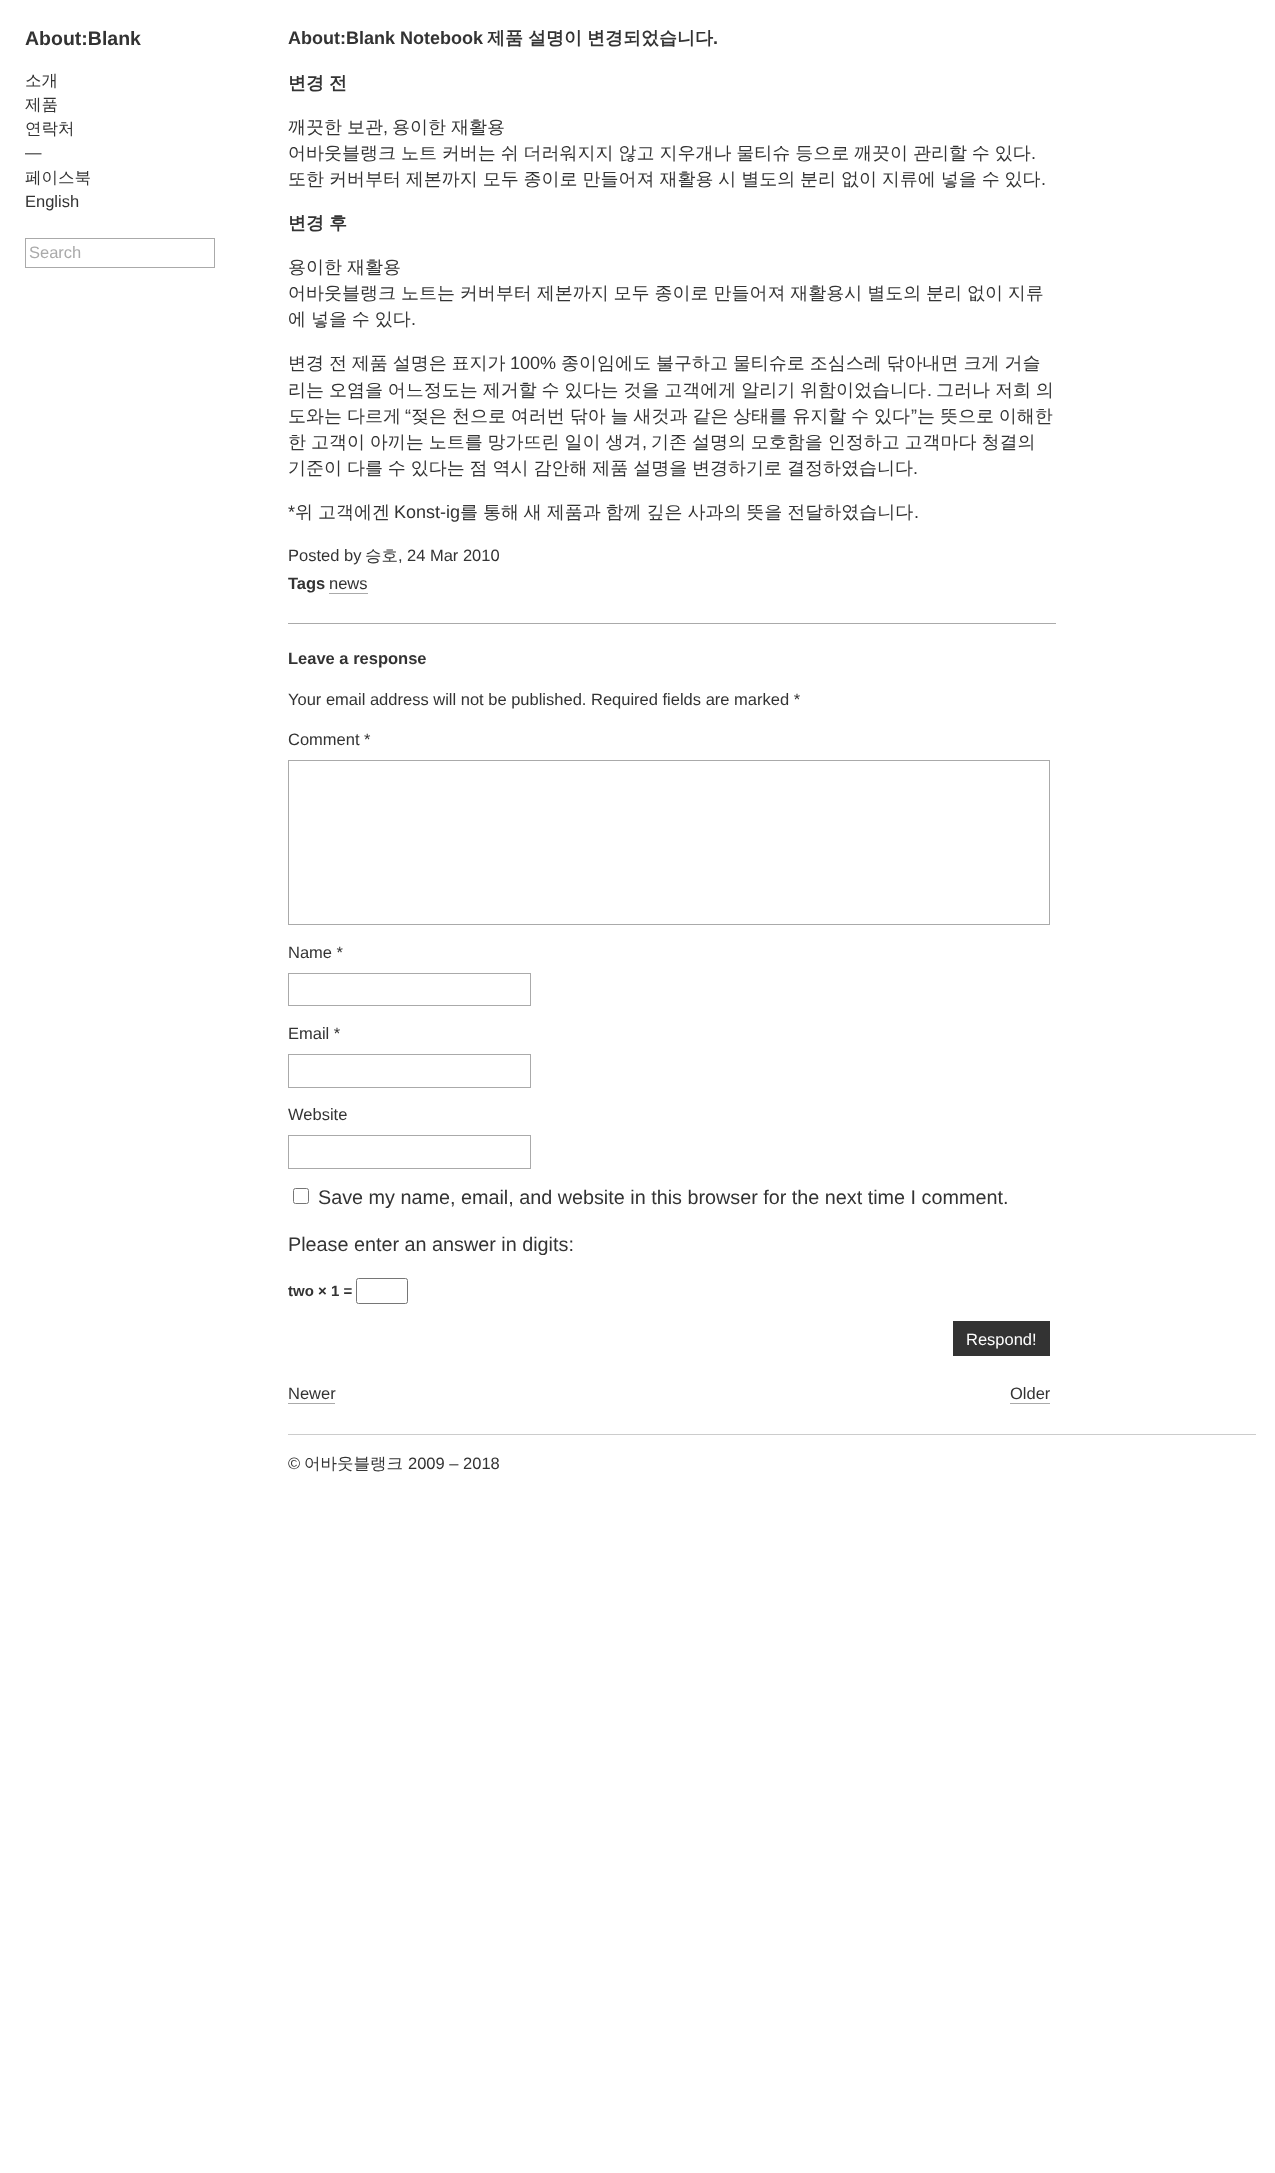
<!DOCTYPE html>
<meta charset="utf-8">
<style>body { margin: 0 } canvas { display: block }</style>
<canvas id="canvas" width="1275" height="2173"></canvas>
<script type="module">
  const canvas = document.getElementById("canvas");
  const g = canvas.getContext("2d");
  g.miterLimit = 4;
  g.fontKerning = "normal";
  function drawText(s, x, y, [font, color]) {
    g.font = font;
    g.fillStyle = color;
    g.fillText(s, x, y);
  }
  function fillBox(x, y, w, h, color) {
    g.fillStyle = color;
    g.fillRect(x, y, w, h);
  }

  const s1 = ["bold 19.5px Liberation Sans", "#333333"];
  const s2 = ["500 16.5px WenQuanYi Zen Hei", "#333333"];
  const s3 = ["16.5px Liberation Sans", "#333333"];
  const s4 = ["16.5px Liberation Sans", "#AAAAAA"];
  const s5 = ["bold 18px Liberation Sans", "#333333"];
  const s6 = ["bold 18px WenQuanYi Zen Hei", "#333333"];
  const s7 = ["500 18px WenQuanYi Zen Hei", "#333333"];
  const s8 = ["18px Liberation Sans", "#333333"];
  const s9 = ["bold 16.5px Liberation Sans", "#333333"];
  const s10 = ["19.8px Liberation Sans", "#333333"];
  const s11 = ["bold 15px Liberation Sans", "#333333"];
  const s12 = ["16.5px Liberation Sans", "#FFFFFF"];

  fillBox(0, 0, 1275, 2173, "#FFFFFF");
  drawText("About:Blank", 25, 45, s1);
  drawText("소개", 25, 86, s2);
  drawText("제품", 25, 110, s2);
  drawText("연락처", 25, 134, s2);
  drawText("—", 25, 158, s3);
  drawText("페이스북", 25, 183, s2);
  drawText("English", 25, 207, s3);
  g.strokeStyle = "#AAAAAA";
  g.strokeRect(25.5, 238.5, 189, 29);
  drawText("Search", 29, 258, s4);
  drawText("About:Blank Notebook", 288, 44, s5);
  drawText("제품", 487, 44, s6);
  drawText("설명이", 528, 44, s6);
  drawText("변경되었습니다", 587, 44, s6);
  drawText(".", 713, 44, s5);
  g.wordSpacing = "-0.5px";
  drawText("변경 전", 288, 89, s6);
  drawText("깨끗한 보관", 288, 133, s7);
  g.wordSpacing = "0px";
  drawText(",", 383, 133, s8);
  g.wordSpacing = "-0.5px";
  drawText("용이한 재활용", 392, 133, s7);
  drawText("어바웃블랭크 노트 커버는 쉬 더러워지지 않고 지우개나 물티슈 등으로 깨끗이 관리할 수 있다", 288, 159, s7);
  g.wordSpacing = "0px";
  drawText(".", 1031, 159, s8);
  g.wordSpacing = "-0.5px";
  drawText("또한 커버부터 제본까지 모두 종이로 만들어져 재활용 시 별도의 분리 없이 지류에 넣을 수 있다", 288, 185, s7);
  g.wordSpacing = "0px";
  drawText(".", 1041, 185, s8);
  g.wordSpacing = "-0.5px";
  drawText("변경 후", 288, 229, s6);
  drawText("용이한 재활용", 288, 273, s7);
  drawText("어바웃블랭크 노트는 커버부터 제본까지 모두 종이로 만들어져 재활용시 별도의 분리 없이 지류", 288, 299, s7);
  drawText("에 넣을 수 있다", 288, 325, s7);
  g.wordSpacing = "0px";
  drawText(".", 411, 325, s8);
  g.wordSpacing = "-0.5px";
  drawText("변경 전 제품 설명은 표지가", 288, 369, s7);
  g.wordSpacing = "0px";
  drawText("100%", 510, 369, s8);
  g.wordSpacing = "-0.5px";
  drawText("종이임에도 불구하고 물티슈로 조심스레 닦아내면 크게 거슬", 561, 369, s7);
  drawText("리는 오염을 어느정도는 제거할 수 있다는 것을 고객에게 알리기 위함이었습니다", 288, 396, s7);
  g.wordSpacing = "0px";
  drawText(".", 927, 396, s8);
  g.wordSpacing = "-0.5px";
  drawText("그러나 저희 의", 936, 396, s7);
  drawText("도와는 다르게", 288, 422, s7);
  g.wordSpacing = "0px";
  drawText("“", 405, 422, s8);
  g.wordSpacing = "-0.5px";
  drawText("젖은 천으로 여러번 닦아 늘 새것과 같은 상태를 유지할 수 있다", 411, 422, s7);
  g.wordSpacing = "0px";
  drawText("”", 911, 422, s8);
  g.wordSpacing = "-0.5px";
  drawText("는 뜻으로 이해한", 917, 422, s7);
  drawText("한 고객이 아끼는 노트를 망가뜨린 일이 생겨", 288, 448, s7);
  g.wordSpacing = "0px";
  drawText(",", 642, 448, s8);
  g.wordSpacing = "-0.5px";
  drawText("기존 설명의 모호함을 인정하고 고객마다 청결의", 651, 448, s7);
  drawText("기준이 다를 수 있다는 점 역시 감안해 제품 설명을 변경하기로 결정하였습니다", 288, 474, s7);
  g.wordSpacing = "0px";
  drawText(".", 913, 474, s8);
  drawText("*", 288, 518, s8);
  g.wordSpacing = "-0.5px";
  drawText("위 고객에겐", 295, 518, s7);
  g.wordSpacing = "0px";
  drawText("Konst-ig", 394, 518, s8);
  g.wordSpacing = "-0.5px";
  drawText("를 통해 새 제품과 함께 깊은 사과의 뜻을 전달하였습니다", 460, 518, s7);
  g.wordSpacing = "0px";
  drawText(".", 914, 518, s8);
  drawText("Posted by", 288, 561, s3);
  drawText("승호", 365, 561, s2);
  drawText(",", 398, 561, s3);
  drawText("24 Mar 2010", 407, 561, s3);
  g.save();
  g.beginPath();
  g.rect(288, 25, 768, 1393);
  g.clip();
  drawText("Tags", 288, 589, s9);
  g.restore();
  drawText("news", 329, 589, s3);
  fillBox(329, 593, 39, 1, "#AAAAAA");
  fillBox(288, 623, 768, 1, "#AAAAAA");
  drawText("Leave a response", 288, 664, s9);
  drawText("Your email address will not be published. Required fields are marked *", 288, 705, s3);
  drawText("Comment *", 288, 745, s3);
  g.strokeRect(288.5, 760.5, 761, 164);
  drawText("Name *", 288, 958, s3);
  g.strokeRect(288.5, 973.5, 242, 32);
  drawText("Email *", 288, 1039, s3);
  g.strokeRect(288.5, 1054.5, 242, 33);
  drawText("Website", 288, 1120, s3);
  g.strokeRect(288.5, 1135.5, 242, 33);
  g.beginPath();
  g.roundRect(293.5, 1188.5, 15, 15, 2);
  g.strokeStyle = "#767676";
  g.stroke();
  drawText("Save my name, email, and website in this browser for the next time I comment.", 318, 1204, s10);
  drawText("Please enter an answer in digits:", 288, 1251, s10);
  drawText("two × 1 =", 288, 1296, s11);
  g.beginPath();
  g.roundRect(356.5, 1278.5, 51, 25, 2);
  g.stroke();
  fillBox(953, 1321, 97, 35, "#333333");
  drawText("Respond!", 966, 1345, s12);
  drawText("Newer", 288, 1399, s3);
  fillBox(288, 1403, 47, 1, "#AAAAAA");
  drawText("Older", 1010, 1399, s3);
  fillBox(1010, 1403, 40, 1, "#AAAAAA");
  fillBox(288, 1434, 968, 1, "#CCCCCC");
  drawText("©", 288, 1469, s3);
  drawText("어바웃블랭크", 304, 1469, s2);
  drawText("2009 – 2018", 408, 1469, s3);
</script>
